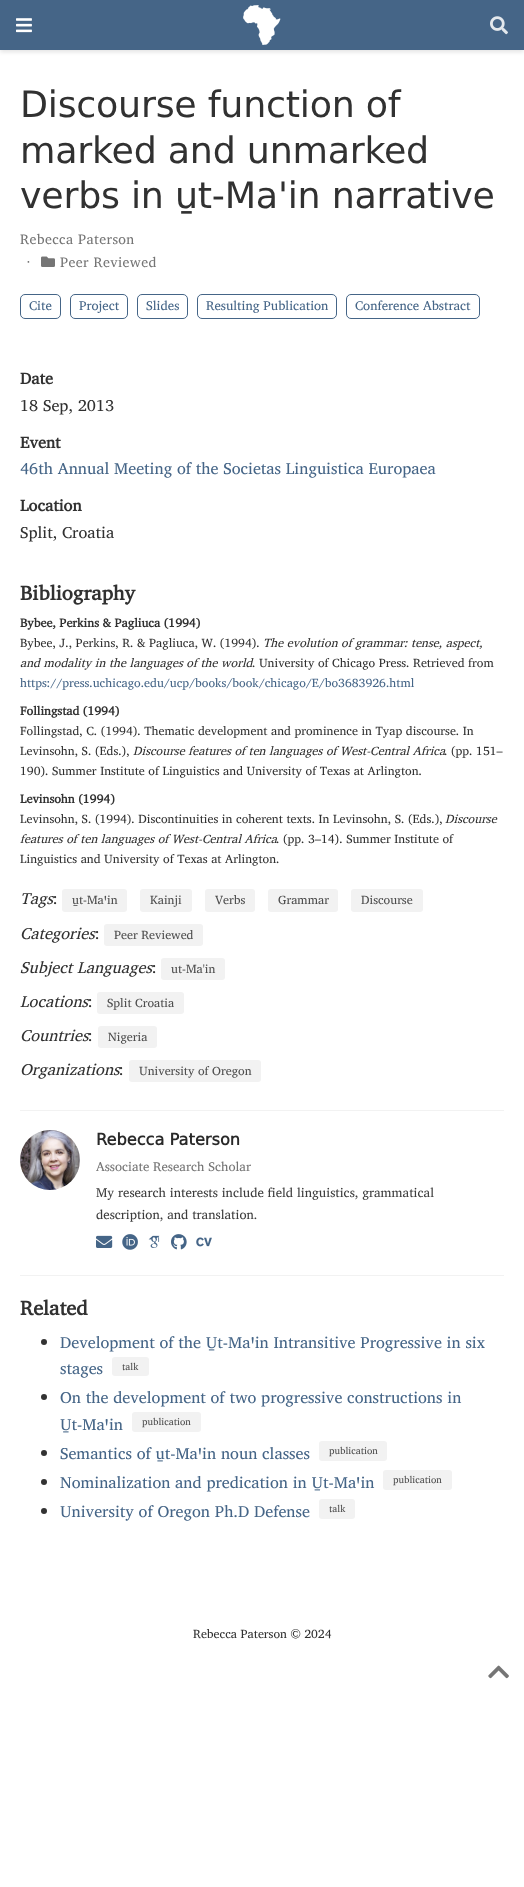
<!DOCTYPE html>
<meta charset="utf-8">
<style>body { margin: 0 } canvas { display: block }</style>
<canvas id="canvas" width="524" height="1887"></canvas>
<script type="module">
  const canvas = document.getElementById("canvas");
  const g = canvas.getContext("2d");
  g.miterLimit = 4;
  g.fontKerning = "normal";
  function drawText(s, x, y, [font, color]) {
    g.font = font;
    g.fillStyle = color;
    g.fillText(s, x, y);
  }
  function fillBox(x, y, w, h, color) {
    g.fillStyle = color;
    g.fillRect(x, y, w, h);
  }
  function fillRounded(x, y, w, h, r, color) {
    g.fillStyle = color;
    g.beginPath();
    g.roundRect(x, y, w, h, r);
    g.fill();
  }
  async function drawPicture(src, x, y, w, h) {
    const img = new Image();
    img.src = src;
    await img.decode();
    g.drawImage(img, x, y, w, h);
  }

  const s1 = ["36.4px DejaVu Sans", "#313131"];
  const s2 = ["14px Charis SIL", "#757575"];
  const s3 = ["15px Charis SIL", "#757575"];
  const s4 = ["12.95px Charis SIL", "#456587"];
  const s5 = ["bold 16.2px 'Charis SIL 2'", "#313131"];
  const s6 = ["16.2px Charis SIL", "#313131"];
  const s7 = ["16.2px Charis SIL", "#456587"];
  const s8 = ["bold 20.25px Charis SIL", "#313131"];
  const s9 = ["bold 12.15px 'Charis SIL 2'", "#313131"];
  const s10 = ["12.15px Charis SIL", "#313131"];
  const s11 = ["italic 12.15px Charis SIL", "#313131"];
  const s12 = ["12.15px Charis SIL", "#456587"];
  const s13 = ["italic 16.2px Charis SIL", "#313131"];
  const s14 = ["12.15px Charis SIL", "#4D4D4D"];
  const s15 = ["bold 16.2px DejaVu Sans", "#292929"];
  const s16 = ["12.95px 'Charis SIL 2'", "#757575"];
  const s17 = ["12.95px Charis SIL", "#3D3D3D"];
  const s18 = ["9.75px Charis SIL", "#4D4D4D"];

  fillBox(0, 0, 524, 1887, "#FFFFFF");
  g.fillStyle = "rgba(0, 0, 0, 0.11)";
  g.filter = "blur(2px)";
  g.beginPath();
  g.rect(0, 2, 524, 50);
  g.fill();
  g.filter = "none";
  fillBox(0, 0, 524, 50, "#456587");
  await drawPicture("pic1.png", 16, 18, 16, 15);
  await drawPicture("pic2.png", 243, 5, 38, 40);
  await drawPicture("pic3.png", 490, 16, 18, 19);
  g.letterSpacing = "-0.25px";
  drawText("Discourse function of", 20, 117, s1);
  drawText("marked and unmarked", 20, 163, s1);
  drawText("verbs in u̱t‑Maꞌin narrative", 20, 208, s1);
  g.letterSpacing = "0.4px";
  drawText("Rebecca Paterson", 20, 244, s2);
  drawText("·", 27, 267, s3);
  await drawPicture("pic4.png", 41, 256, 14, 11);
  drawText("Peer Reviewed", 60, 267, s2);
  g.beginPath();
  g.roundRect(20.5, 294.5, 40, 24, 4.5);
  g.strokeStyle = "#456587";
  g.stroke();
  g.letterSpacing = "0px";
  drawText("Cite", 29, 310, s4);
  g.beginPath();
  g.roundRect(70.5, 294.5, 57, 24, 4.5);
  g.stroke();
  drawText("Project", 79, 310, s4);
  g.beginPath();
  g.roundRect(137.5, 294.5, 50, 24, 4.5);
  g.stroke();
  drawText("Slides", 146, 310, s4);
  g.beginPath();
  g.roundRect(197.5, 294.5, 139, 24, 4.5);
  g.stroke();
  drawText("Resulting Publication", 206, 310, s4);
  g.beginPath();
  g.roundRect(346.5, 294.5, 133, 24, 4.5);
  g.stroke();
  drawText("Conference Abstract", 355, 310, s4);
  drawText("Date", 20, 384, s5);
  drawText("18 Sep, 2013", 20, 411, s6);
  drawText("Event", 20, 448, s5);
  drawText("46th Annual Meeting of the Societas Linguistica Europaea", 20, 474, s7);
  drawText("Location", 20, 511, s5);
  drawText("Split, Croatia", 20, 538, s6);
  drawText("Bibliography", 20, 600, s8);
  drawText("Bybee, Perkins & Pagliuca (1994)", 20, 627, s9);
  drawText("Bybee, J., Perkins, R. & Pagliuca, W. (1994).", 20, 647, s10);
  drawText("The evolution of grammar: tense, aspect,", 263, 647, s11);
  drawText("and modality in the languages of the world", 20, 667, s11);
  drawText(". University of Chicago Press. Retrieved from", 252, 667, s10);
  drawText("https://press.uchicago.edu/ucp/books/book/chicago/E/bo3683926.html", 20, 687, s12);
  drawText("Follingstad (1994)", 20, 715, s9);
  drawText("Follingstad, C. (1994). Thematic development and prominence in Tyap discourse. In", 20, 735, s10);
  drawText("Levinsohn, S. (Eds.),", 20, 755, s10);
  drawText("Discourse features of ten languages of West-Central Africa", 133, 755, s11);
  drawText(". (pp. 151–", 444, 755, s10);
  drawText("190). Summer Institute of Linguistics and University of Texas at Arlington.", 20, 775, s10);
  drawText("Levinsohn (1994)", 20, 803, s9);
  drawText("Levinsohn, S. (1994). Discontinuities in coherent texts. In Levinsohn, S. (Eds.),", 20, 823, s10);
  drawText("Discourse", 445, 823, s11);
  drawText("features of ten languages of West-Central Africa", 20, 843, s11);
  drawText(". (pp. 3–14). Summer Institute of", 276, 843, s10);
  drawText("Linguistics and University of Texas at Arlington.", 20, 863, s10);
  drawText("Tags", 20, 904, s13);
  drawText(":", 53, 904, s6);
  fillRounded(62, 889, 65, 23, 3, "#F2F2F2");
  drawText("u̱t‑Maꞌin", 72, 904, s14);
  fillRounded(140, 889, 52, 23, 3, "#F2F2F2");
  drawText("Kainji", 150, 904, s14);
  fillRounded(205, 889, 50, 23, 3, "#F2F2F2");
  drawText("Verbs", 215, 904, s14);
  fillRounded(268, 889, 70, 23, 3, "#F2F2F2");
  drawText("Grammar", 278, 904, s14);
  fillRounded(351, 889, 72, 23, 3, "#F2F2F2");
  drawText("Discourse", 361, 904, s14);
  drawText("Categories", 20, 939, s13);
  drawText(":", 95, 939, s6);
  fillRounded(104, 924, 99, 22, 3, "#F2F2F2");
  drawText("Peer Reviewed", 114, 939, s14);
  drawText("Subject Languages", 20, 973, s13);
  drawText(":", 152, 973, s6);
  fillRounded(161, 958, 64, 22, 3, "#F2F2F2");
  drawText("ut-Ma'in", 171, 973, s14);
  drawText("Locations", 20, 1007, s13);
  fillRounded(97, 992, 87, 22, 3, "#F2F2F2");
  drawText("Split Croatia", 107, 1007, s14);
  drawText(":", 88, 1007, s6);
  drawText("Countries", 20, 1041, s13);
  drawText(":", 88, 1041, s6);
  fillRounded(98, 1026, 59, 22, 3, "#F2F2F2");
  drawText("Nigeria", 108, 1041, s14);
  drawText("Organizations", 20, 1075, s13);
  drawText(":", 119, 1075, s6);
  fillRounded(129, 1060, 132, 22, 3, "#F2F2F2");
  drawText("University of Oregon", 139, 1075, s14);
  fillBox(20, 1110, 484, 1, "#F2F2F2");
  await drawPicture("pic5.png", 20, 1130, 60, 60);
  drawText("Rebecca Paterson", 96, 1145, s15);
  drawText("Associate Research Scholar", 96, 1171, s16);
  drawText("My research interests include field linguistics, grammatical", 96, 1197, s17);
  drawText("description, and translation.", 96, 1219, s17);
  await drawPicture("pic6.png", 96, 1235, 17, 13);
  await drawPicture("pic7.png", 122, 1234, 16, 16);
  await drawPicture("pic8.png", 148, 1235, 12, 13);
  await drawPicture("pic9.png", 171, 1234, 16, 16);
  await drawPicture("pic10.png", 196, 1237, 16, 10);
  fillBox(20, 1275, 484, 1, "#F2F2F2");
  drawText("Related", 20, 1315, s8);
  g.fillStyle = "#333333";
  g.beginPath();
  g.arc(44, 1342, 3, 0, Math.PI * 2);
  g.fill();
  drawText("Development of the U̱t-Maꞌin Intransitive Progressive in six", 60, 1348, s7);
  drawText("stages", 60, 1374, s7);
  fillRounded(112, 1357, 37, 19, 3, "#F2F2F2");
  drawText("talk", 122, 1370, s18);
  g.fillStyle = "#333333";
  g.beginPath();
  g.arc(44, 1397, 3, 0, Math.PI * 2);
  g.fill();
  drawText("On the development of two progressive constructions in", 60, 1403, s7);
  drawText("U̱t‑Maꞌin", 60, 1430, s7);
  fillRounded(132, 1412, 69, 20, 3, "#F2F2F2");
  drawText("publication", 142, 1425, s18);
  g.fillStyle = "#333333";
  g.beginPath();
  g.arc(44, 1453, 3, 0, Math.PI * 2);
  g.fill();
  drawText("Semantics of u̱t‑Maꞌin noun classes", 60, 1459, s7);
  fillRounded(319, 1441, 68, 20, 3, "#F2F2F2");
  drawText("publication", 329, 1454, s18);
  g.fillStyle = "#333333";
  g.beginPath();
  g.arc(44, 1482, 3, 0, Math.PI * 2);
  g.fill();
  drawText("Nominalization and predication in U̱t‑Maꞌin", 60, 1488, s7);
  fillRounded(383, 1470, 69, 20, 3, "#F2F2F2");
  drawText("publication", 393, 1483, s18);
  g.fillStyle = "#333333";
  g.beginPath();
  g.arc(44, 1511, 3, 0, Math.PI * 2);
  g.fill();
  drawText("University of Oregon Ph.D Defense", 60, 1517, s7);
  fillRounded(319, 1499, 36, 20, 3, "#F2F2F2");
  drawText("talk", 329, 1512, s18);
  drawText("Rebecca Paterson © 2024", 193, 1638, s10);
  await drawPicture("pic11.png", 488, 1665, 21, 14);
</script>
